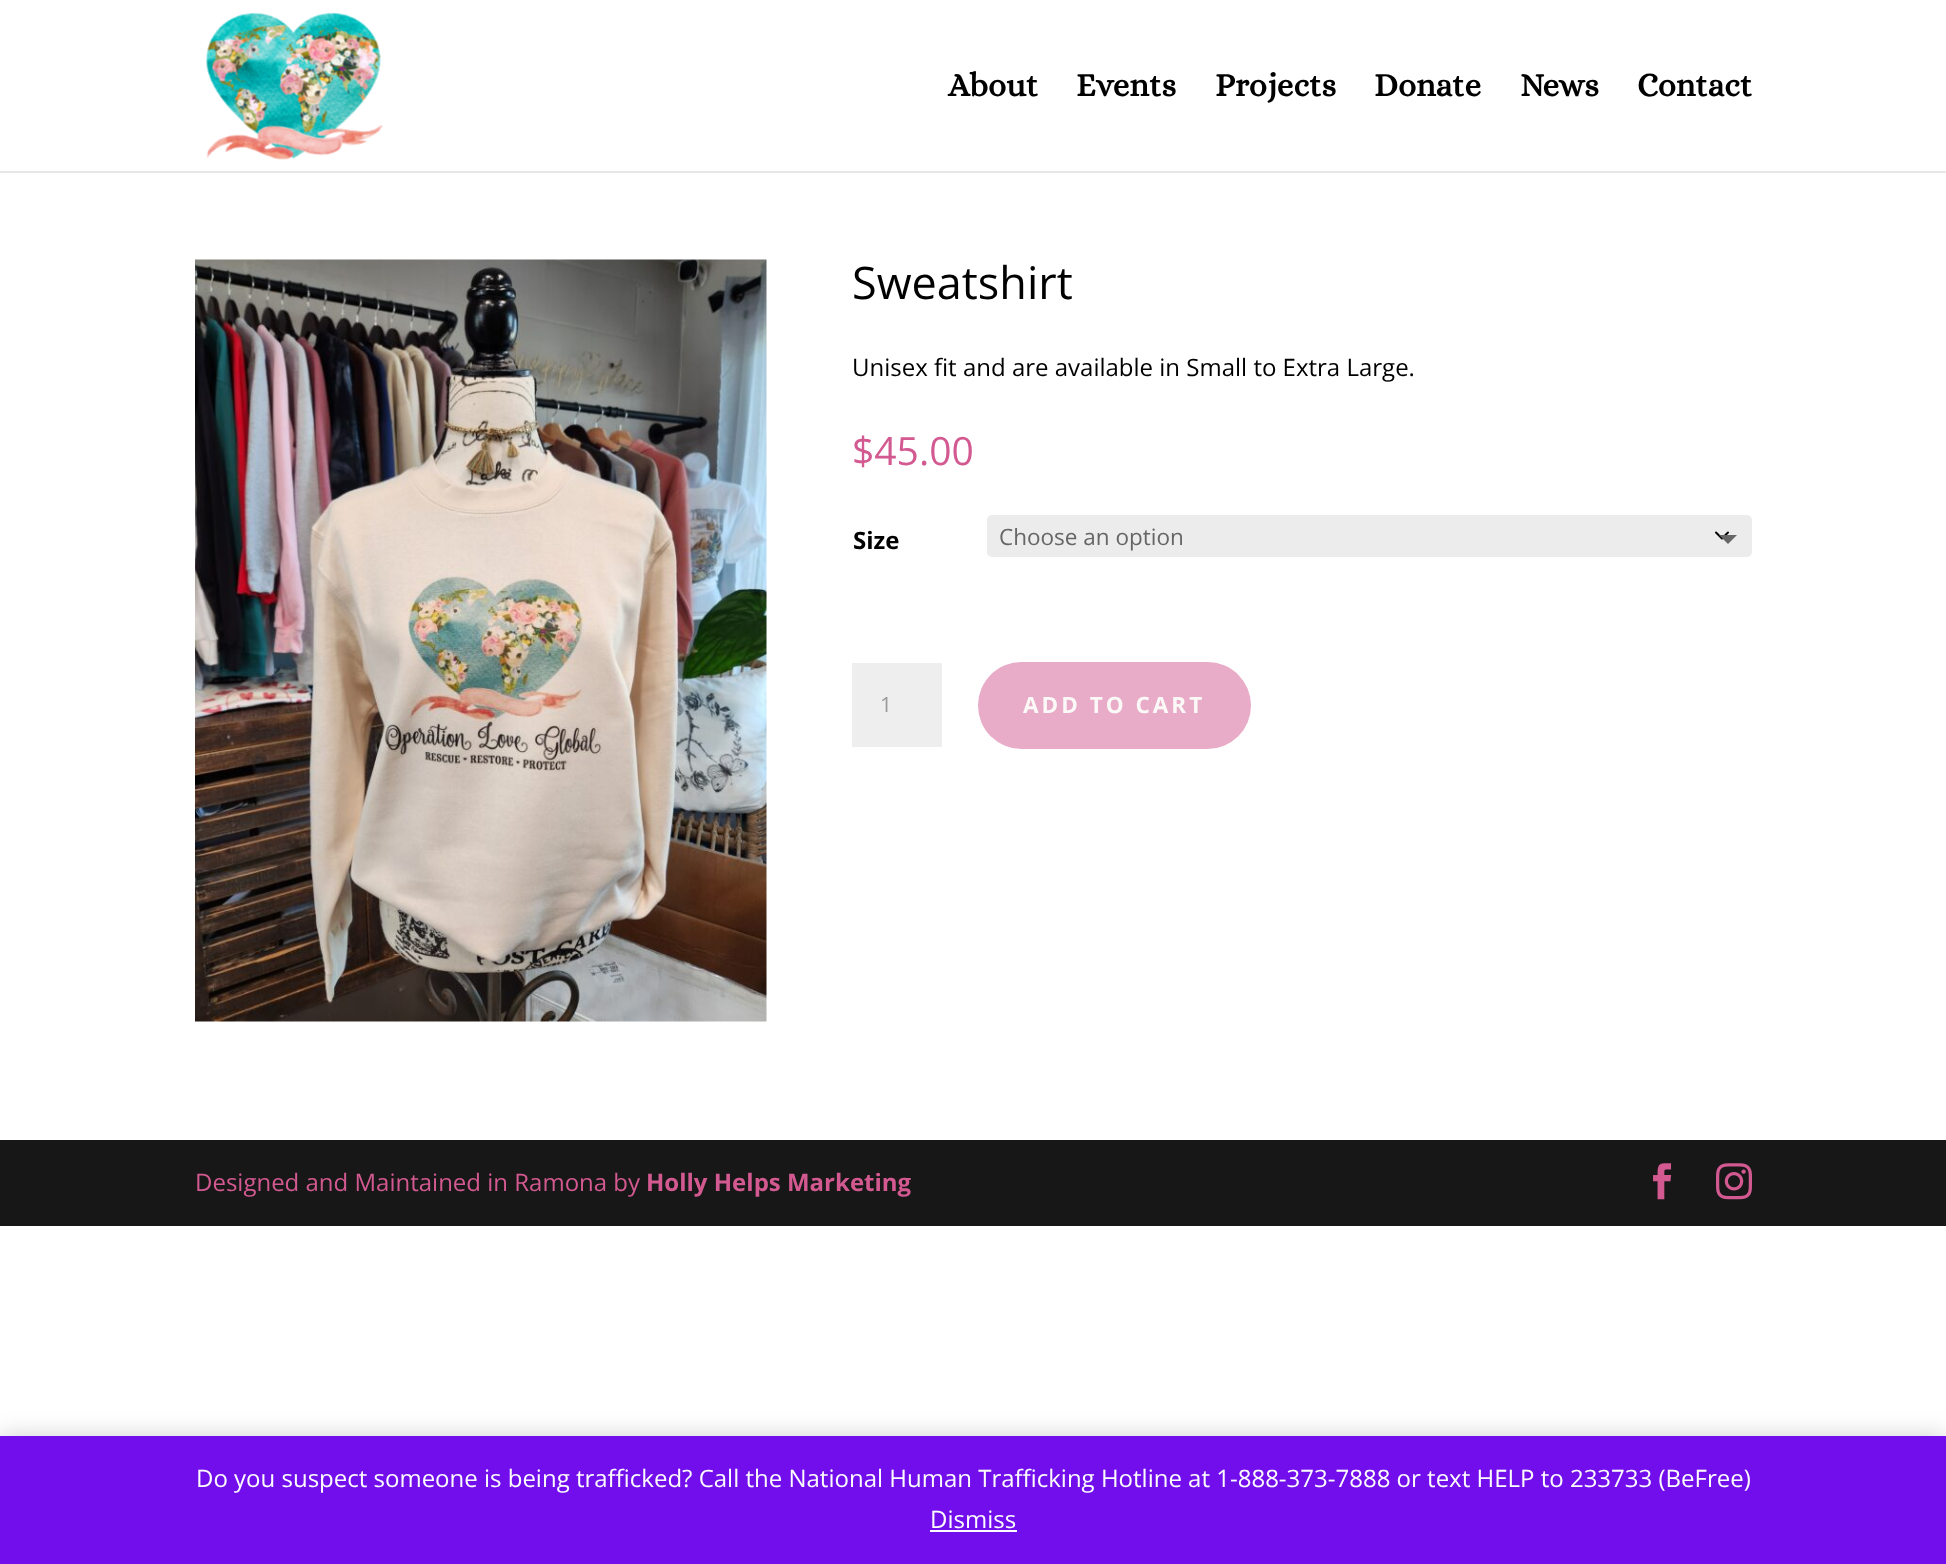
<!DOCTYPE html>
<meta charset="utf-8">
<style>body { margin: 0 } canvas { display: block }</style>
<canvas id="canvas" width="1946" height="1564"></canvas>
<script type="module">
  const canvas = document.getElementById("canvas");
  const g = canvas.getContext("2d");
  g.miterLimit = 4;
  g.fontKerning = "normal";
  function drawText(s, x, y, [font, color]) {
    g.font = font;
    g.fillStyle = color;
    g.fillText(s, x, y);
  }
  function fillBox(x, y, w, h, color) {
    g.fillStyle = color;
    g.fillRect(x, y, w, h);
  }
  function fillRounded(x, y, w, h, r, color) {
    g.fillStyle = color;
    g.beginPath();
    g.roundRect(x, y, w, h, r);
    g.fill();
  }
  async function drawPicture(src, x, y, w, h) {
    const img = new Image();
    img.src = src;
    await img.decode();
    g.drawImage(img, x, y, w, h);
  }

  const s1 = ["bold 33px Alice", "#000000"];
  const s2 = ["45px Open Sans", "#000000"];
  const s3 = ["24px Open Sans", "#000000"];
  const s4 = ["39px Open Sans", "#D35991"];
  const s5 = ["bold 24px Open Sans", "#000000"];
  const s6 = ["22.5px Open Sans", "#666666"];
  const s7 = ["21px Open Sans", "#999999"];
  const s8 = ["bold 22.5px Open Sans", "#FBF9F7"];
  const s9 = ["24px Open Sans", "#D35991"];
  const s10 = ["bold 24px Open Sans", "#D35991"];
  const s11 = ["24px Open Sans", "#FCFBFE"];

  fillBox(0, 0, 1946, 1564, "#FFFFFF");
  fillBox(0, 171, 1946, 2, "#E6E6E6");
  await drawPicture("pic1.png", 206, 12, 177, 148);
  drawText("About", 948, 96, s1);
  drawText("Events", 1076, 96, s1);
  drawText("Projects", 1215, 96, s1);
  drawText("Donate", 1374, 96, s1);
  drawText("News", 1520, 96, s1);
  drawText("Contact", 1637, 96, s1);
  await drawPicture("pic2.png", 195, 259, 572, 763);
  drawText("Sweatshirt", 852, 299, s2);
  drawText("Unisex fit and are available in Small to Extra Large.", 852, 376, s3);
  drawText("$45.00", 852, 465, s4);
  drawText("Size", 853, 549, s5);
  fillRounded(987, 515, 765, 42, 5, "#ECECEC");
  g.beginPath();
  g.moveTo(1716, 532.5);
  g.lineTo(1722, 538.5);
  g.lineTo(1728, 532.5);
  g.strokeStyle = "#000000";
  g.lineWidth = 2;
  g.lineCap = "round";
  g.lineJoin = "round";
  g.stroke();
  drawText("Choose an option", 999, 545, s6);
  g.beginPath();
  g.moveTo(1719, 535);
  g.lineTo(1737, 535);
  g.lineTo(1728, 544);
  g.closePath();
  g.fill();
  fillBox(852, 663, 90, 84, "#EEEEEE");
  drawText("1", 880, 712, s7);
  fillRounded(978, 662, 273, 87, 43.5, "#E9ACC8");
  g.letterSpacing = "3px";
  drawText("ADD TO CART", 1023, 713, s8);
  fillBox(0, 1140, 1946, 86, "#171717");
  g.letterSpacing = "0px";
  drawText("Designed and Maintained in Ramona by", 195, 1191, s9);
  drawText("Holly Helps Marketing", 646, 1191, s10);
  await drawPicture("pic3.png", 1653, 1163, 19, 37);
  await drawPicture("pic4.png", 1716, 1163, 36, 37);
  g.fillStyle = "rgba(0, 0, 0, 0.2)";
  g.filter = "blur(12px)";
  g.beginPath();
  g.rect(0, 1437, 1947, 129);
  g.fill();
  g.filter = "none";
  fillBox(0, 1436, 1946, 128, "#720EEC");
  drawText("Do you suspect someone is being trafficked? Call the National Human Trafficking Hotline at 1-888-373-7888 or text HELP to 233733 (BeFree)", 196, 1487, s11);
  drawText("Dismiss", 930, 1528, s11);
  fillBox(930, 1530, 87, 2, "#FCFBFE");
</script>
